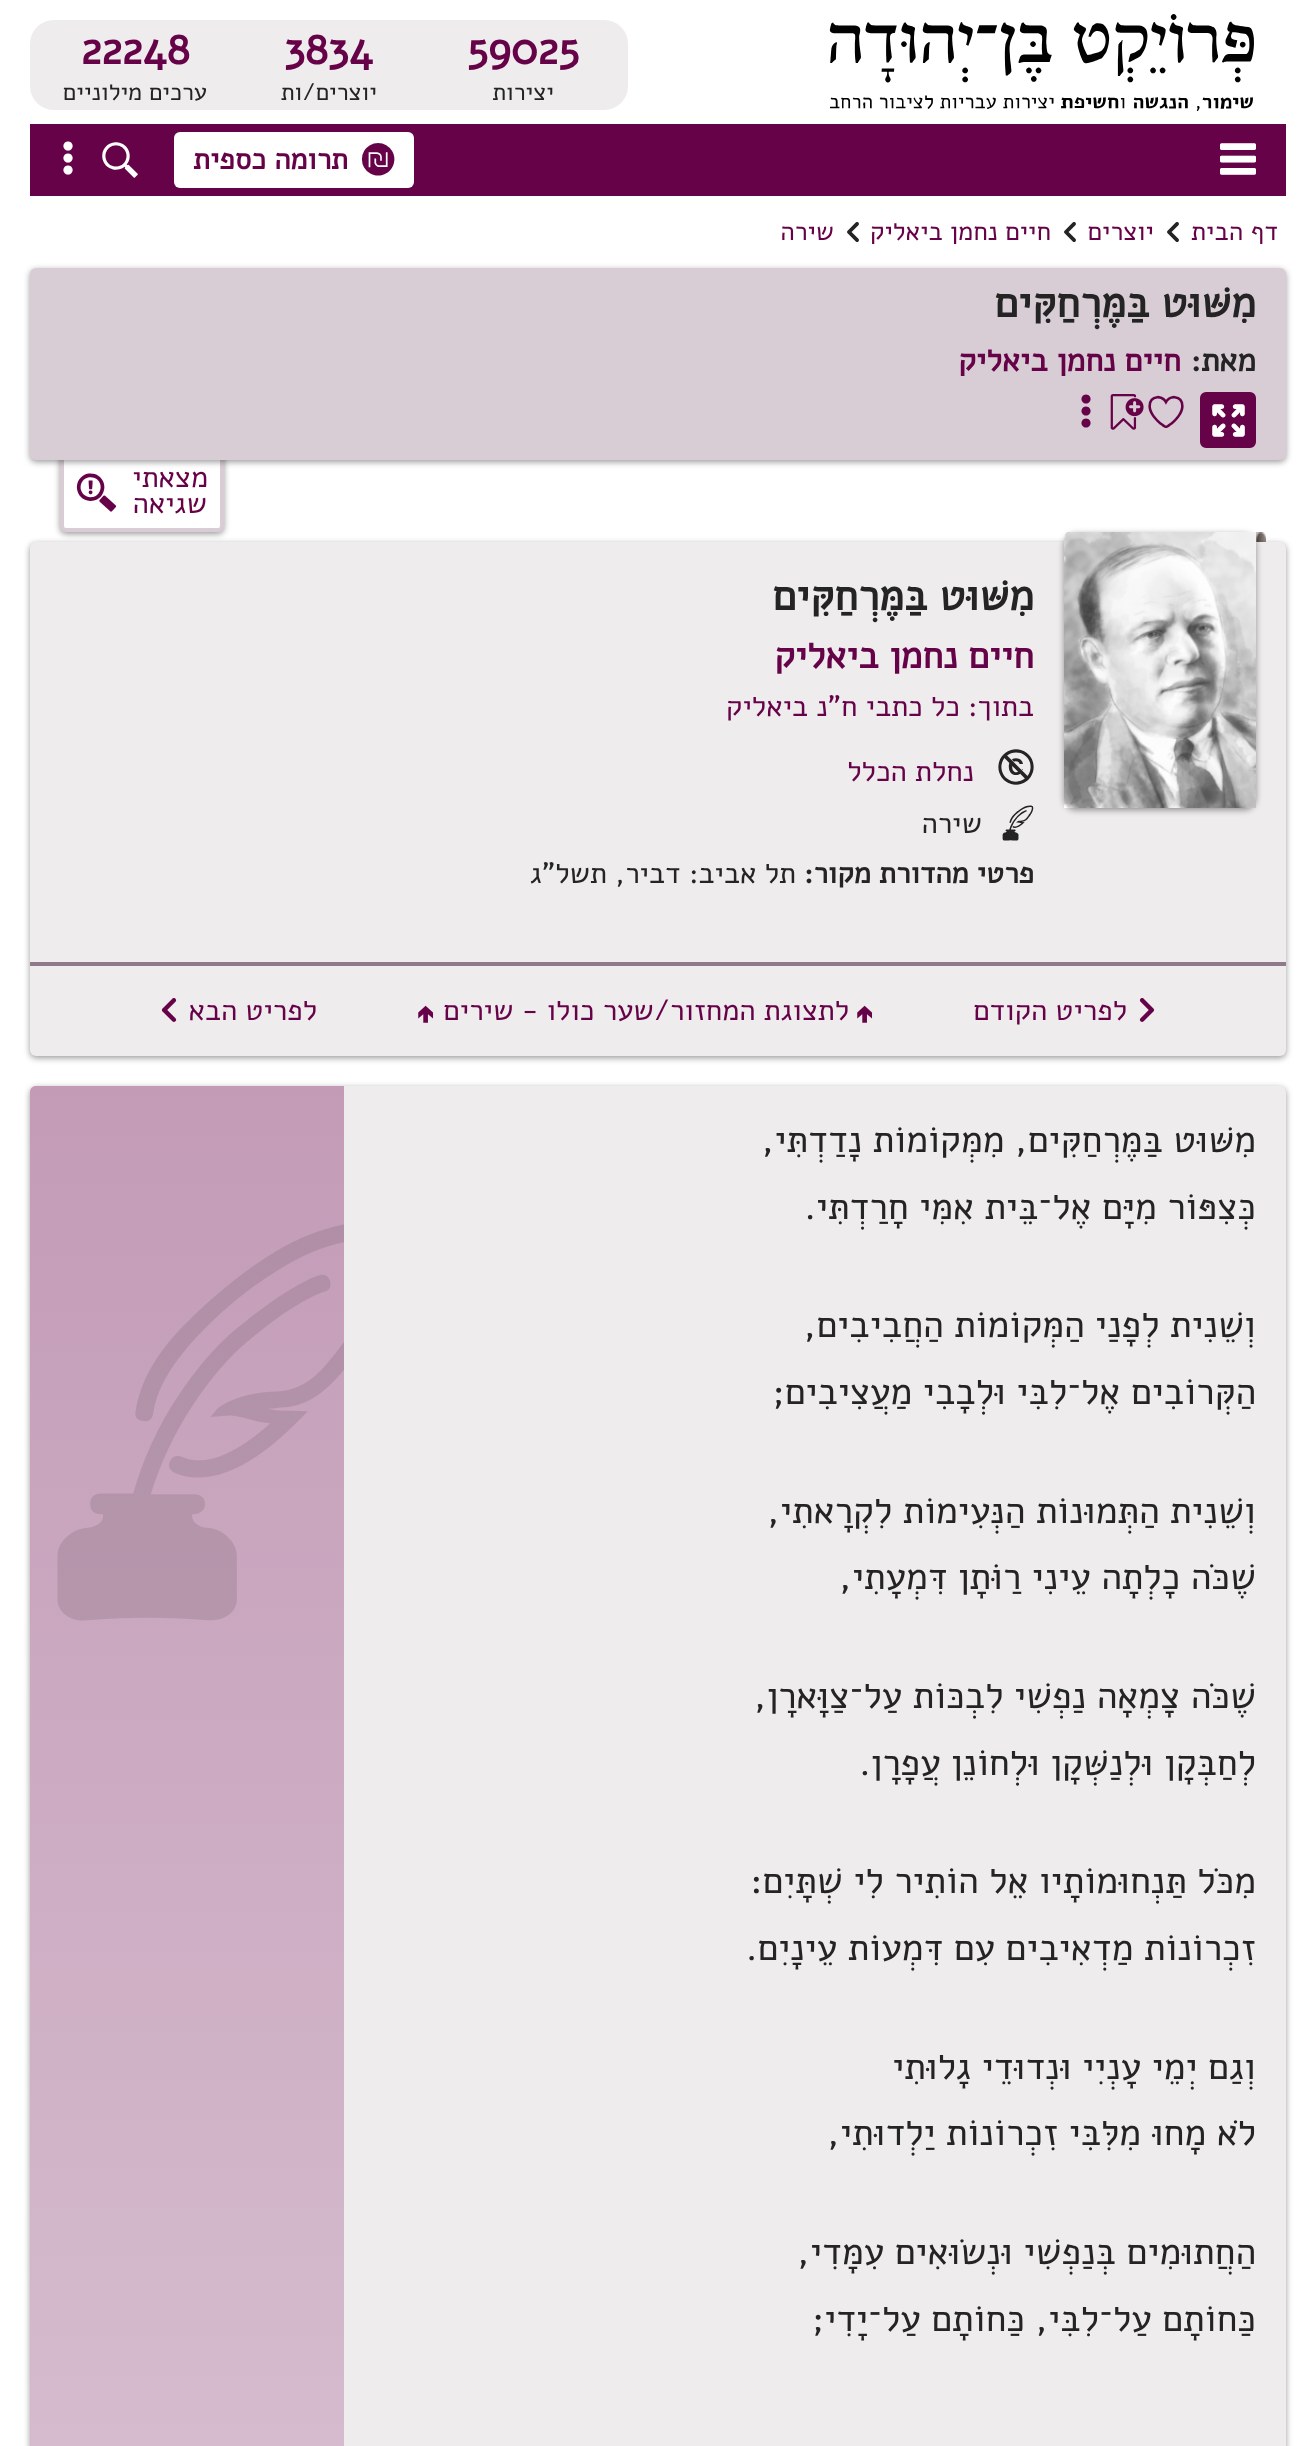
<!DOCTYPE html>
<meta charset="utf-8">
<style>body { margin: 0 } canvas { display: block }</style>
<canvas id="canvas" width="1315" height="2446"></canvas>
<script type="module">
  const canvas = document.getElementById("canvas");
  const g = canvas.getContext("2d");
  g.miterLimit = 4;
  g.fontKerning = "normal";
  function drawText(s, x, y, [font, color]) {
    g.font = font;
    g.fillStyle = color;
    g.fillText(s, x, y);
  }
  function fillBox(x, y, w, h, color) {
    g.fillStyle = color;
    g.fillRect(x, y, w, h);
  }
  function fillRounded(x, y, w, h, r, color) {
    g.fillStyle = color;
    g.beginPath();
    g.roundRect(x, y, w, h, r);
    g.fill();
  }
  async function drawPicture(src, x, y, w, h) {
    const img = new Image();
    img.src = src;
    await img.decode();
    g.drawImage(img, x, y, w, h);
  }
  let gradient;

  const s1 = ["bold 44px Alef", "#660248"];
  const s2 = ["24px Alef", "#242424"];
  const s3 = ["36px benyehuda", "#FFFFFF"];
  const s4 = ["bold 36px benyehuda", "#660248"];
  const s5 = ["bold 29.3px Alef", "#660248"];
  const s6 = ["26px Alef", "#660248"];
  const s7 = ["20px benyehuda", "#242424"];
  const s8 = ["bold 42.75px Alef", "#242424"];
  const s9 = ["bold 32px Alef", "#242424"];
  const s10 = ["bold 32px Alef", "#660248"];
  const s11 = ["bold 36px benyehuda", "#FFFFFF"];
  const s12 = ["36px benyehuda", "#660248"];
  const s13 = ["29.3px Alef", "#660248"];
  const s14 = ["40px benyehuda", "#660248"];
  const s15 = ["bold 37.3px Alef", "#660248"];
  const s16 = ["36px benyehuda", "#242424"];
  const s17 = ["29.3px Alef", "#242424"];
  const s18 = ["bold 29.3px Alef", "#242424"];
  const s19 = ["24px benyehuda", "#660248"];
  const s20 = ["24px 'Noto Sans Symbols 2'", "#660248"];
  const s21 = ["37.3px Alef", "#242424"];

  fillBox(0, 0, 1315, 2446, "#FFFFFF");
  await drawPicture("pic1.png", 829, 14, 425, 97);
  fillRounded(30, 20, 598, 90, 24, "#EEECED");
  drawText("59025", 467, 64, s1);
  g.direction = "rtl";
  drawText("יצירות", 554, 100, s2);
  g.direction = "ltr";
  drawText("3834", 284, 64, s1);
  g.direction = "rtl";
  drawText("יוצרים/ות", 377, 100, s2);
  g.direction = "ltr";
  drawText("22248", 81, 64, s1);
  g.direction = "rtl";
  drawText("ערכים מילוניים", 207, 100, s2);
  fillBox(30, 124, 1256, 72, "#660248");
  g.direction = "ltr";
  drawText(",", 1220, 177, s3);
  fillRounded(174, 132, 240, 56, 6, "#FFFFFF");
  drawText("z", 360, 178, s4);
  g.direction = "rtl";
  drawText("תרומה כספית", 348, 169, s5);
  g.direction = "ltr";
  drawText("X", 102, 178, s3);
  drawText("Y", 50, 176, s3);
  g.direction = "rtl";
  drawText("דף הבית", 1278, 240, s6);
  g.direction = "ltr";
  drawText("1", 1163, 242, s7);
  g.direction = "rtl";
  drawText("יוצרים", 1154, 240, s6);
  g.direction = "ltr";
  drawText("1", 1060, 242, s7);
  g.direction = "rtl";
  drawText("חיים נחמן ביאליק", 1051, 240, s6);
  g.direction = "ltr";
  drawText("1", 843, 242, s7);
  g.direction = "rtl";
  drawText("שירה", 834, 240, s6);
  g.fillStyle = "rgba(0, 0, 0, 0.4)";
  g.filter = "blur(3px)";
  g.beginPath();
  g.roundRect(30, 544, 1256, 514, 6);
  g.fill();
  g.filter = "none";
  fillRounded(30, 542, 1256, 514, 6, "#EEECED");
  g.fillStyle = "rgba(0, 0, 0, 0.4)";
  g.filter = "blur(3px)";
  g.beginPath();
  g.roundRect(60, 454, 164, 80, 6);
  g.fill();
  g.filter = "none";
  g.fillStyle = "#FFFFFF";
  g.beginPath();
  g.roundRect(62, 454, 160, 76, 4);
  g.fill();
  g.strokeStyle = "#D9CDD5";
  g.lineWidth = 4;
  g.stroke();
  g.fillStyle = "rgba(0, 0, 0, 0.4)";
  g.filter = "blur(3px)";
  g.beginPath();
  g.roundRect(30, 270, 1256, 192, 6);
  g.fill();
  g.filter = "none";
  fillRounded(30, 268, 1256, 192, 6, "#D9CDD5");
  drawText("מִשּׁוּט בַּמֶּרְחַקִּים", 1256, 317, s8);
  drawText("מאת:", 1256, 371, s9);
  drawText("חיים נחמן ביאליק", 1181, 371, s10);
  g.beginPath();
  g.roundRect(1201, 393, 54, 54, 5);
  g.fill();
  g.strokeStyle = "#660248";
  g.lineWidth = 2;
  g.stroke();
  g.direction = "ltr";
  drawText("/", 1210, 439, s11);
  drawText("5", 1148, 430, s12);
  await drawPicture("pic2.png", 1110, 394, 34, 36);
  drawText("Y", 1068, 429, s12);
  g.direction = "rtl";
  drawText("מצאתי", 208, 487, s13);
  drawText("שגיאה", 207, 513, s13);
  g.direction = "ltr";
  drawText("g", 76, 513, s14);
  await drawPicture("pic4.png", 1064, 532, 202, 10);
  g.fillStyle = "rgba(0, 0, 0, 0.4)";
  g.filter = "blur(3px)";
  g.beginPath();
  g.roundRect(1064, 534, 192, 276, 12);
  g.fill();
  g.filter = "none";
  await drawPicture("pic3.png", 1064, 532, 192, 276);
  g.direction = "rtl";
  drawText("מִשּׁוּט בַּמֶּרְחַקִּים", 1034, 610, s8);
  drawText("חיים נחמן ביאליק", 1034, 668, s15);
  drawText("בתוך:", 1034, 716, s13);
  drawText("כל כתבי ח\"נ ביאליק", 960, 716, s13);
  g.direction = "ltr";
  drawText("m", 998, 785, s16);
  g.direction = "rtl";
  drawText("נחלת הכלל", 974, 781, s13);
  g.direction = "ltr";
  drawText("t", 998, 841, s16);
  g.direction = "rtl";
  drawText("שירה", 982, 833, s17);
  drawText("פרטי מהדורת מקור:", 1034, 883, s18);
  drawText("תל אביב: דביר, תשל\"ג", 796, 883, s17);
  fillBox(30, 962, 1256, 4, "#907989");
  g.direction = "ltr";
  drawText("2", 1135, 1022, s19);
  g.direction = "rtl";
  drawText("לפריט הקודם", 1127, 1020, s13);
  g.direction = "ltr";
  drawText("🢁", 856, 1022, s20);
  g.direction = "rtl";
  drawText("לתצוגת המחזור/שער כולו - שירים", 849, 1020, s13);
  g.direction = "ltr";
  drawText("🢁", 417, 1022, s20);
  g.direction = "rtl";
  drawText("לפריט הבא", 317, 1020, s13);
  g.direction = "ltr";
  drawText("1", 157, 1022, s19);
  g.fillStyle = "rgba(0, 0, 0, 0.4)";
  g.filter = "blur(3px)";
  g.beginPath();
  g.roundRect(30, 1088, 1256, 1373, 6);
  g.fill();
  g.filter = "none";
  fillRounded(30, 1086, 1256, 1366, 6, "#EEECED");
  g.direction = "rtl";
  drawText("מִשּׁוּט בַּמֶּרְחַקִּים, מִמְּקוֹמוֹת נָדַדְתִּי,", 1256, 1152, s21);
  drawText("כְּצִפּוֹר מִיָּם אֶל־בֵּית אִמִּי חָרַדְתִּי.", 1256, 1219, s21);
  drawText("וְשֵׁנִית לְפָנַי הַמְּקוֹמוֹת הַחֲבִיבִים,", 1256, 1337, s21);
  drawText("הַקְּרוֹבִים אֶל־לִבִּי וּלְבָבִי מַעֲצִיבִים;", 1256, 1404, s21);
  drawText("וְשֵׁנִית הַתְּמוּנוֹת הַנְּעִימוֹת לִקְרָאתִי,", 1256, 1523, s21);
  drawText("שֶׁכֹּה כָלְתָה עֵינִי רַוֹּתָן דִּמְעָתִי,", 1256, 1589, s21);
  drawText("שֶׁכֹּה צָמְאָה נַפְשִׁי לִבְכּוֹת עַל־צַוָּארָן,", 1256, 1708, s21);
  drawText("לְחַבְּקָן וּלְנַשְּׁקָן וּלְחוֹנֵן עֲפָרָן.", 1256, 1775, s21);
  drawText("מִכֹּל תַּנְחוּמוֹתָיו אֵל הוֹתִיר לִי שְׁתָּיִם:", 1256, 1893, s21);
  drawText("זִכְרוֹנוֹת מַדְאִיבִים עִם דִּמְעוֹת עֵינָיִם.", 1256, 1960, s21);
  drawText("וְגַם יְמֵי עָנְיִי וּנְדוּדֵי גָלוּתִי", 1256, 2079, s21);
  drawText("לֹא מָחוּ מִלִּבִּי זִכְרוֹנוֹת יַלְדוּתִי,", 1256, 2145, s21);
  drawText("הַחֲתוּמִים בְּנַפְשִׁי וּנְשׂוּאִים עִמָּדִי,", 1256, 2264, s21);
  drawText("כַּחוֹתָם עַל־לִבִּי, כַּחוֹתָם עַל־יָדִי;", 1256, 2331, s21);
  gradient = g.createLinearGradient(187, 1086, 187, 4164);
  gradient.addColorStop(0, "#C39BB7");
  gradient.addColorStop(1, "#EBE3E8");
  g.fillStyle = gradient;
  g.beginPath();
  g.moveTo(36, 1086);
  g.lineTo(344, 1086);
  g.lineTo(344, 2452);
  g.lineTo(36, 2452);
  g.bezierCurveTo(32.5, 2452, 30, 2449.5, 30, 2446);
  g.lineTo(30, 1092);
  g.bezierCurveTo(30, 1088.5, 32.5, 1086, 36, 1086);
  g.closePath();
  g.fill();
  await drawPicture("pic5.png", 57, 1224, 287, 397);
</script>
